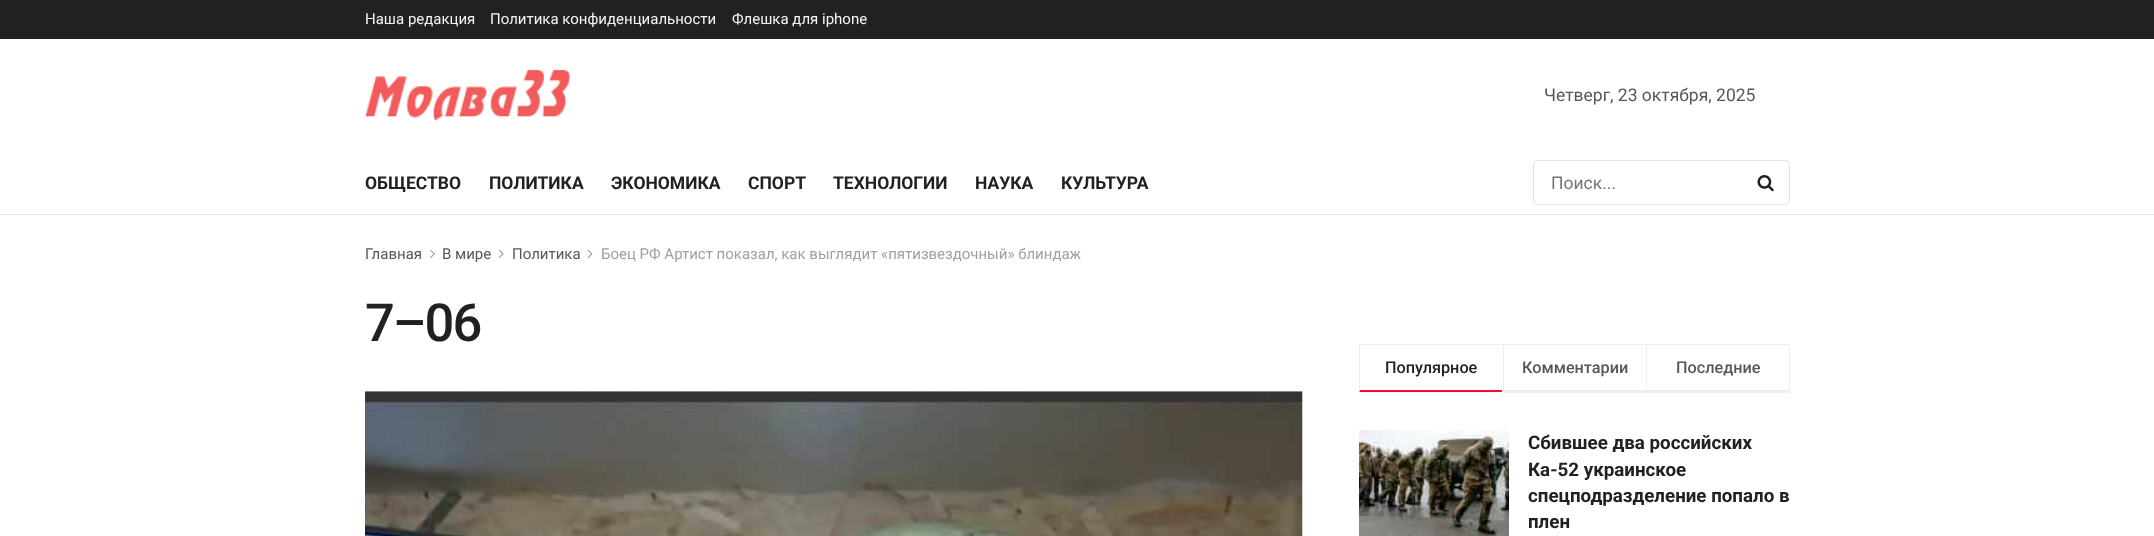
<!DOCTYPE html>
<meta charset="utf-8">
<style>body { margin: 0 } canvas { display: block }</style>
<canvas id="canvas" width="2154" height="536"></canvas>
<script type="module">
  const canvas = document.getElementById("canvas");
  const g = canvas.getContext("2d");
  g.miterLimit = 4;
  g.fontKerning = "normal";
  function drawText(s, x, y, [font, color]) {
    g.font = font;
    g.fillStyle = color;
    g.fillText(s, x, y);
  }
  function fillBox(x, y, w, h, color) {
    g.fillStyle = color;
    g.fillRect(x, y, w, h);
  }
  async function drawPicture(src, x, y, w, h) {
    const img = new Image();
    img.src = src;
    await img.decode();
    g.drawImage(img, x, y, w, h);
  }

  const s1 = ["15px Roboto", "#F5F5F5"];
  const s2 = ["17.5px Roboto", "#53585C"];
  const s3 = ["bold 17.5px Roboto", "#212121"];
  const s4 = ["17.5px Roboto", "#757575"];
  const s5 = ["15px Roboto", "#53585C"];
  const s6 = ["15px Roboto", "#A0A0A0"];
  const s7 = ["500 52.5px Roboto", "#212121"];
  const s8 = ["500 16.25px Roboto", "#212121"];
  const s9 = ["500 16.25px Roboto", "#53585C"];
  const s10 = ["bold 18.75px Roboto", "#212121"];

  fillBox(0, 0, 2154, 536, "#FFFFFF");
  fillBox(0, 0, 2154, 39, "#212121");
  drawText("Наша редакция", 365, 24, s1);
  drawText("Политика конфиденциальности", 490, 24, s1);
  drawText("Флешка для iphone", 732, 24, s1);
  await drawPicture("pic1.png", 365, 69, 205, 52);
  drawText("Четверг, 23 октября, 2025", 1544, 101, s2);
  fillBox(0, 214, 2154, 1, "#E8E8E8");
  drawText("ОБЩЕСТВО", 365, 189, s3);
  drawText("ПОЛИТИКА", 489, 189, s3);
  drawText("ЭКОНОМИКА", 611, 189, s3);
  drawText("СПОРТ", 748, 189, s3);
  drawText("ТЕХНОЛОГИИ", 833, 189, s3);
  drawText("НАУКА", 975, 189, s3);
  drawText("КУЛЬТУРА", 1061, 189, s3);
  g.beginPath();
  g.roundRect(1533.5, 160.5, 256, 44, 4.5);
  g.strokeStyle = "#E0E0E0";
  g.stroke();
  drawText("Поиск...", 1551, 189, s4);
  await drawPicture("pic2.png", 1757, 175, 17, 17);
  drawText("Главная", 365, 259, s5);
  await drawPicture("pic3.png", 430, 249, 5, 9);
  drawText("В мире", 442, 259, s5);
  await drawPicture("pic4.png", 498, 249, 6, 9);
  drawText("Политика", 512, 259, s5);
  await drawPicture("pic5.png", 587, 249, 6, 9);
  drawText("Боец РФ Артист показал, как выглядит «пятизвездочный» блиндаж", 601, 259, s6);
  g.letterSpacing = "-2px";
  drawText("7–06", 365, 341, s7);
  fillBox(365, 391, 938, 145, "#F7F7F7");
  await drawPicture("pic6.png", 365, 391, 938, 145);
  fillBox(1359, 344, 431, 1, "#EEEEEE");
  g.fillStyle = "#F70D28";
  g.beginPath();
  g.moveTo(1502, 392);
  g.lineTo(1359, 392);
  g.lineTo(1360, 390);
  g.lineTo(1502, 390);
  g.closePath();
  g.fill();
  g.fillStyle = "#EEEEEE";
  g.beginPath();
  g.moveTo(1359, 392);
  g.lineTo(1359, 344);
  g.lineTo(1360, 345);
  g.lineTo(1360, 390);
  g.closePath();
  g.fill();
  g.letterSpacing = "0px";
  drawText("Популярное", 1385, 373, s8);
  fillBox(1503, 390, 143, 3, "#EEEEEE");
  fillBox(1503, 344, 1, 49, "#EEEEEE");
  drawText("Комментарии", 1522, 373, s9);
  fillBox(1789, 344, 1, 49, "#EEEEEE");
  fillBox(1646, 390, 144, 3, "#EEEEEE");
  fillBox(1646, 344, 1, 49, "#EEEEEE");
  drawText("Последние", 1676, 373, s9);
  await drawPicture("pic7.png", 1359, 430, 150, 106);
  drawText("Сбившее два российских", 1528, 449, s10);
  drawText("Ка-52 украинское", 1528, 476, s10);
  drawText("спецподразделение попало в", 1528, 502, s10);
  drawText("плен", 1528, 528, s10);
</script>
